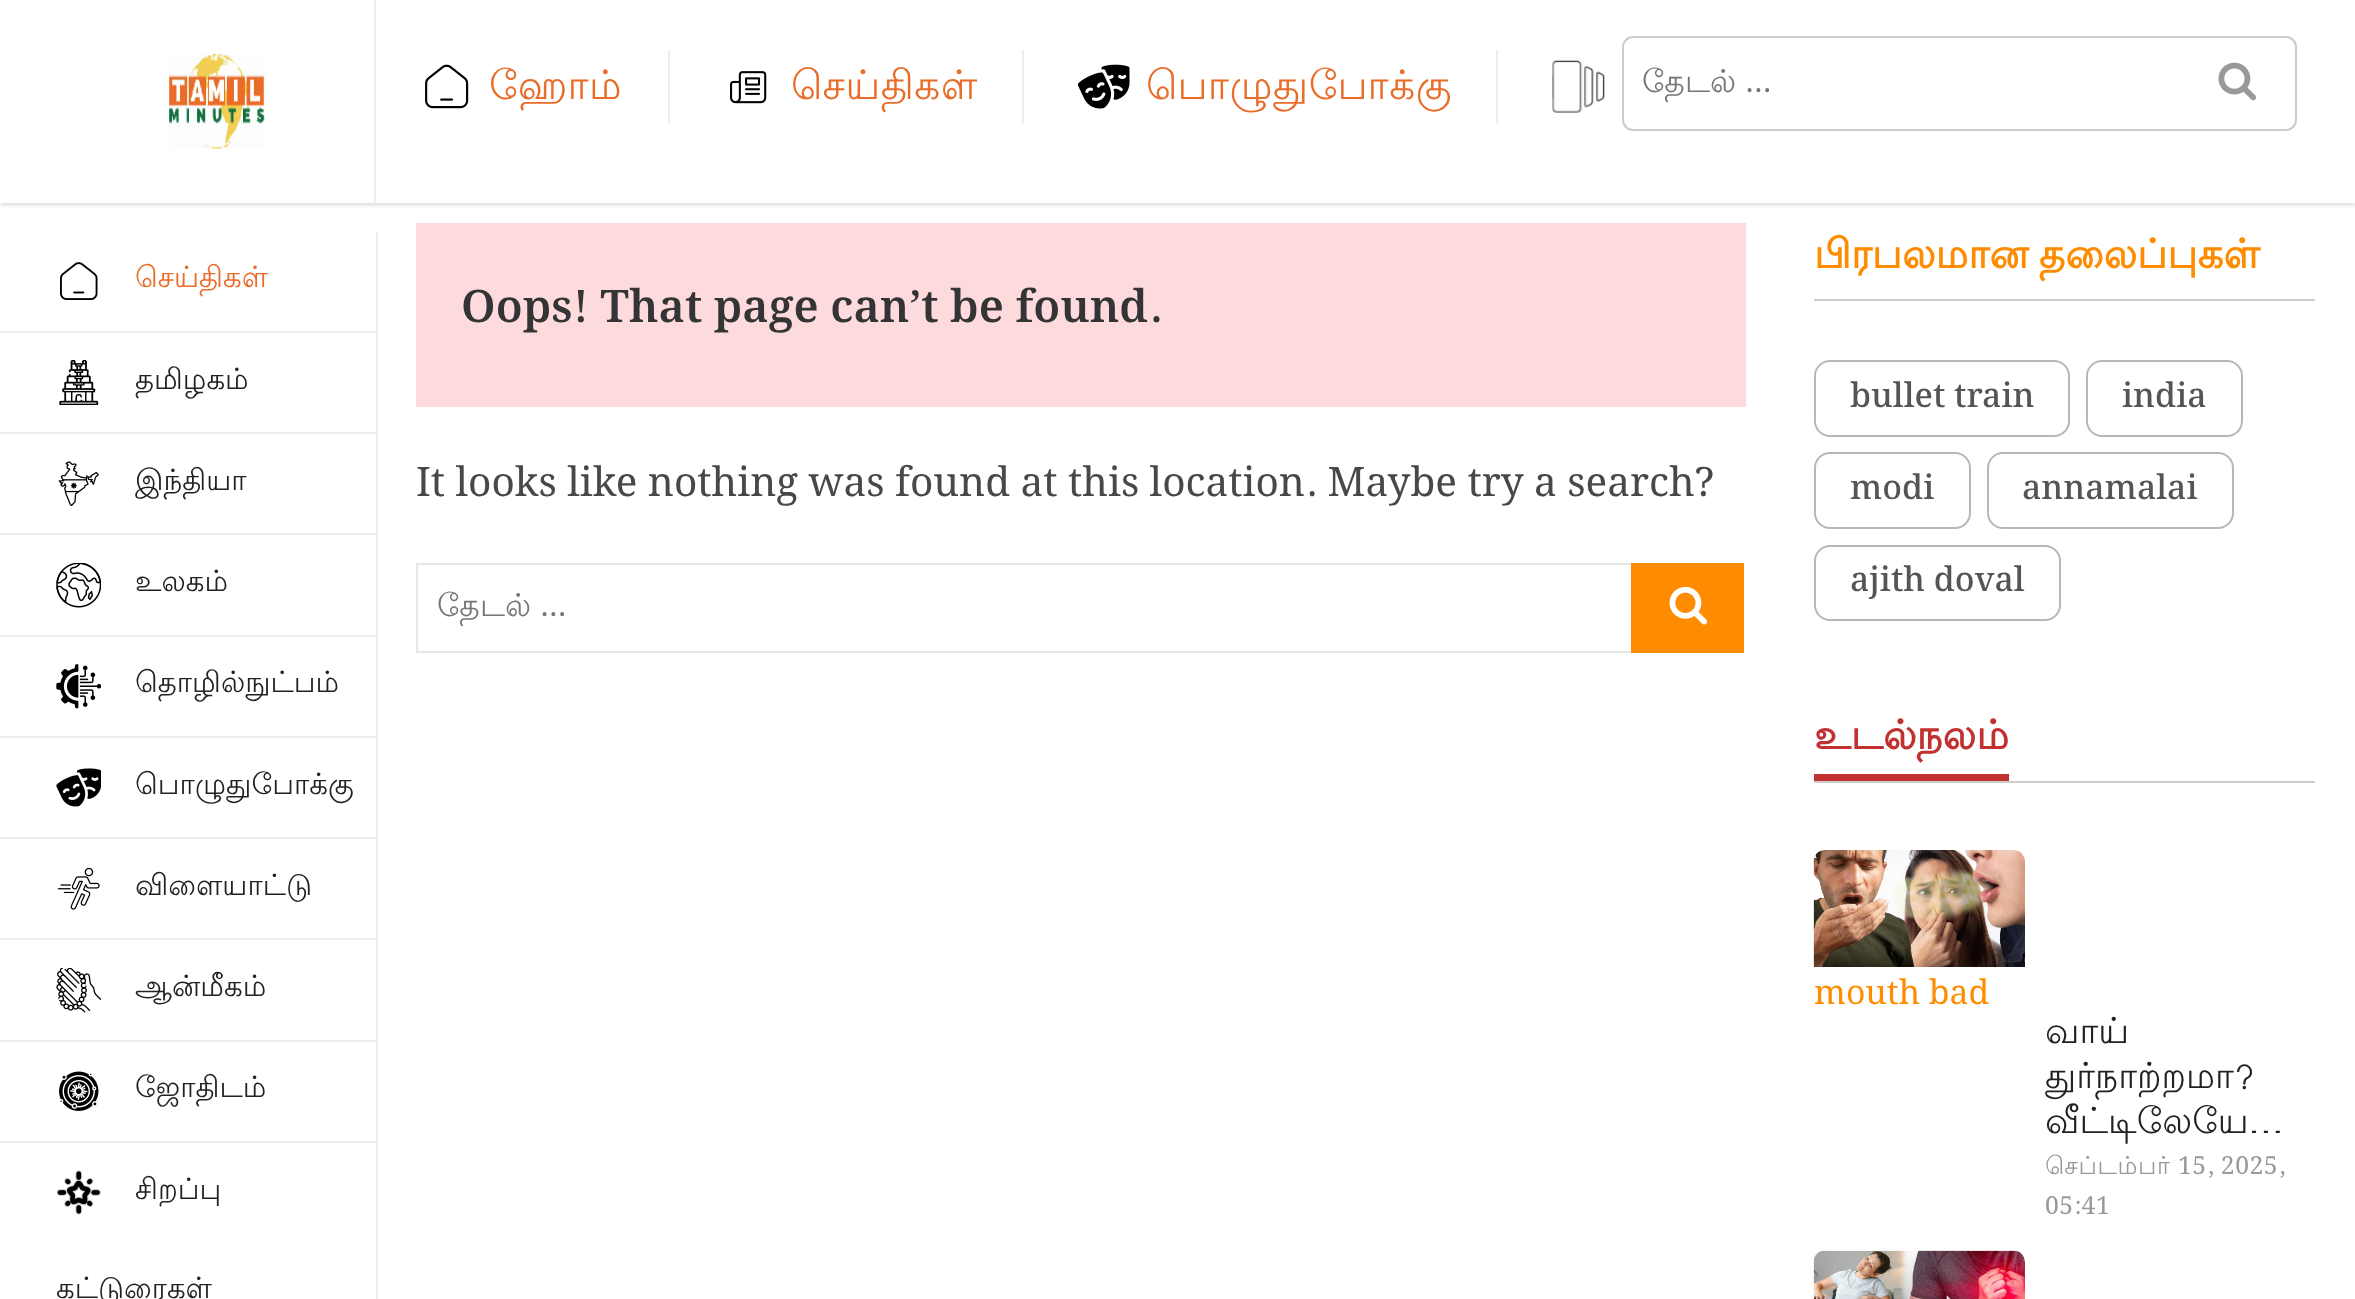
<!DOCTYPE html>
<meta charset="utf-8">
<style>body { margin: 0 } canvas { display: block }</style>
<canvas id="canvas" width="2355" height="1299"></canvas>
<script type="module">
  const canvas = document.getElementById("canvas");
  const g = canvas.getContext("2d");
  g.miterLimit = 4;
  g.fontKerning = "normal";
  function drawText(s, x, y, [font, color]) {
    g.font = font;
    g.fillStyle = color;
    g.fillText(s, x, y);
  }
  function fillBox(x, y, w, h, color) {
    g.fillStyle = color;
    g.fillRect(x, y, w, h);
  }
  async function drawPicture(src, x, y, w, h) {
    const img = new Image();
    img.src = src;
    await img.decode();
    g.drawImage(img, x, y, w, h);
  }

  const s1 = ["40.5px Lohit Tamil", "#E96C29"];
  const s2 = ["31.5px Lohit Tamil", "#757575"];
  const s3 = ["31.5px Noto Serif Bengali", "#757575"];
  const s4 = ["29.25px Lohit Tamil", "#E96C29"];
  const s5 = ["29.25px Lohit Tamil", "#222222"];
  const s6 = ["600 45px Noto Serif Bengali", "#343434"];
  const s7 = ["40.5px Noto Serif Bengali", "#484848"];
  const s8 = ["bold 40.5px Lohit Tamil", "#FF8C00"];
  const s9 = ["500 33.75px Noto Serif Bengali", "#555555"];
  const s10 = ["bold 40.5px Lohit Tamil", "#C0312F"];
  const s11 = ["33.75px Noto Serif Bengali", "#FF8C00"];
  const s12 = ["36px Lohit Tamil", "#222222"];
  const s13 = ["24.75px Lohit Tamil", "#999999"];
  const s14 = ["24.75px Noto Serif Bengali", "#999999"];

  fillBox(0, 0, 2355, 1299, "#FFFFFF");
  g.fillStyle = "rgba(0, 0, 0, 0.15)";
  g.filter = "blur(2px)";
  g.beginPath();
  g.rect(0, 2, 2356, 203);
  g.fill();
  g.filter = "none";
  fillBox(0, 0, 2355, 203, "#FFFFFF");
  fillBox(374, 0, 2, 203, "#EEEEEE");
  await drawPicture("pic1.png", 169, 54, 96, 95);
  fillBox(668, 50, 2, 74, "#EEEEEE");
  await drawPicture("pic2.png", 425, 64, 44, 45);
  g.letterSpacing = "0.5px";
  drawText("ஹோம்", 489, 99, s1);
  fillBox(1022, 50, 2, 74, "#EEEEEE");
  await drawPicture("pic3.png", 730, 71, 37, 33);
  drawText("செய்திகள்", 791, 99, s1);
  fillBox(1496, 50, 2, 74, "#EEEEEE");
  await drawPicture("pic4.png", 1078, 64, 52, 45);
  drawText("பொழுதுபோக்கு", 1146, 99, s1);
  await drawPicture("pic5.png", 1552, 60, 53, 53);
  g.beginPath();
  g.roundRect(1623, 37, 673, 93, 10);
  g.strokeStyle = "#CCCCCC";
  g.lineWidth = 2;
  g.stroke();
  g.save();
  g.beginPath();
  g.rect(1643, 59, 490, 49);
  g.clip();
  g.letterSpacing = "0px";
  drawText("தேடல்", 1642, 92, s2);
  g.restore();
  g.letterSpacing = "0px";
  drawText("…", 1744, 92, s3);
  await drawPicture("pic6.png", 2218, 62, 39, 39);
  fillBox(376, 232, 2, 1067, "#EEEEEE");
  fillBox(0, 331, 376, 2, "#EDEDED");
  await drawPicture("pic7.png", 60, 262, 38, 38);
  drawText("செய்திகள்", 135, 287, s4);
  fillBox(0, 432, 376, 2, "#EDEDED");
  await drawPicture("pic8.png", 59, 360, 40, 45);
  drawText("தமிழகம்", 135, 389, s5);
  fillBox(0, 533, 376, 2, "#EDEDED");
  await drawPicture("pic9.png", 58, 461, 41, 45);
  drawText("இந்தியா", 135, 490, s5);
  fillBox(0, 635, 376, 2, "#EDEDED");
  await drawPicture("pic10.png", 56, 563, 45, 45);
  drawText("உலகம்", 135, 591, s5);
  fillBox(0, 736, 376, 2, "#EDEDED");
  await drawPicture("pic11.png", 56, 664, 45, 45);
  drawText("தொழில்நுட்பம்", 135, 692, s5);
  fillBox(0, 837, 376, 2, "#EDEDED");
  await drawPicture("pic12.png", 56, 768, 45, 39);
  drawText("பொழுதுபோக்கு", 135, 794, s5);
  fillBox(0, 938, 376, 2, "#EDEDED");
  await drawPicture("pic13.png", 57, 867, 43, 43);
  drawText("விளையாட்டு", 135, 895, s5);
  fillBox(0, 1040, 376, 2, "#EDEDED");
  await drawPicture("pic14.png", 56, 968, 45, 45);
  drawText("ஆன்மீகம்", 135, 996, s5);
  fillBox(0, 1141, 376, 2, "#EDEDED");
  await drawPicture("pic15.png", 59, 1071, 40, 40);
  drawText("ஜோதிடம்", 135, 1097, s5);
  await drawPicture("pic16.png", 56, 1170, 45, 45);
  drawText("சிறப்பு", 135, 1199, s5);
  drawText("கட்டுரைகள்", 56, 1298, s5);
  fillBox(416, 223, 1330, 184, "#FDDBDD");
  drawText("Oops! That page can’t be found.", 461, 322, s6);
  drawText("It looks like nothing was found at this location. Maybe try a search?", 416, 496, s7);
  g.strokeStyle = "#E6E6E6";
  g.strokeRect(417, 564, 1216, 88);
  drawText("தேடல்", 437, 616, s2);
  drawText("…", 539, 616, s3);
  fillBox(1631, 563, 113, 90, "#FF8C00");
  await drawPicture("pic17.png", 1669, 586, 39, 39);
  g.wordSpacing = "-2px";
  drawText("பிரபலமான தலைப்புகள்", 1814, 268, s8);
  fillBox(1814, 299, 501, 2, "#CCCCCC");
  g.beginPath();
  g.roundRect(1815, 361, 254, 75, 15);
  g.strokeStyle = "#B7B7B7";
  g.stroke();
  g.wordSpacing = "0px";
  drawText("bullet train", 1850, 407, s9);
  g.beginPath();
  g.roundRect(2087, 361, 155, 75, 15);
  g.stroke();
  drawText("india", 2122, 407, s9);
  g.beginPath();
  g.roundRect(1815, 453, 155, 75, 15);
  g.stroke();
  drawText("modi", 1850, 499, s9);
  g.beginPath();
  g.roundRect(1988, 453, 245, 75, 15);
  g.stroke();
  drawText("annamalai", 2022, 499, s9);
  g.beginPath();
  g.roundRect(1815, 546, 245, 74, 15);
  g.stroke();
  drawText("ajith doval", 1850, 591, s9);
  fillBox(1814, 774, 195, 7, "#C0312F");
  drawText("உடல்நலம்", 1814, 749, s10);
  fillBox(1814, 781, 501, 2, "#CCCCCC");
  await drawPicture("pic18.png", 1813, 850, 212, 117);
  drawText("mouth bad", 1814, 1004, s11);
  drawText("வாய்", 2045, 1043, s12);
  drawText("துர்நாற்றமா?", 2045, 1088, s12);
  drawText("வீட்டிலேயே…", 2045, 1133, s12);
  g.letterSpacing = "0.5px";
  drawText("செப்டம்பர்", 2045, 1174, s13);
  g.wordSpacing = "-1px";
  drawText("15, 2025,", 2178, 1174, s14);
  g.wordSpacing = "0px";
  drawText("05:41", 2045, 1214, s14);
  await drawPicture("pic19.png", 1813, 1250, 212, 49);
</script>
